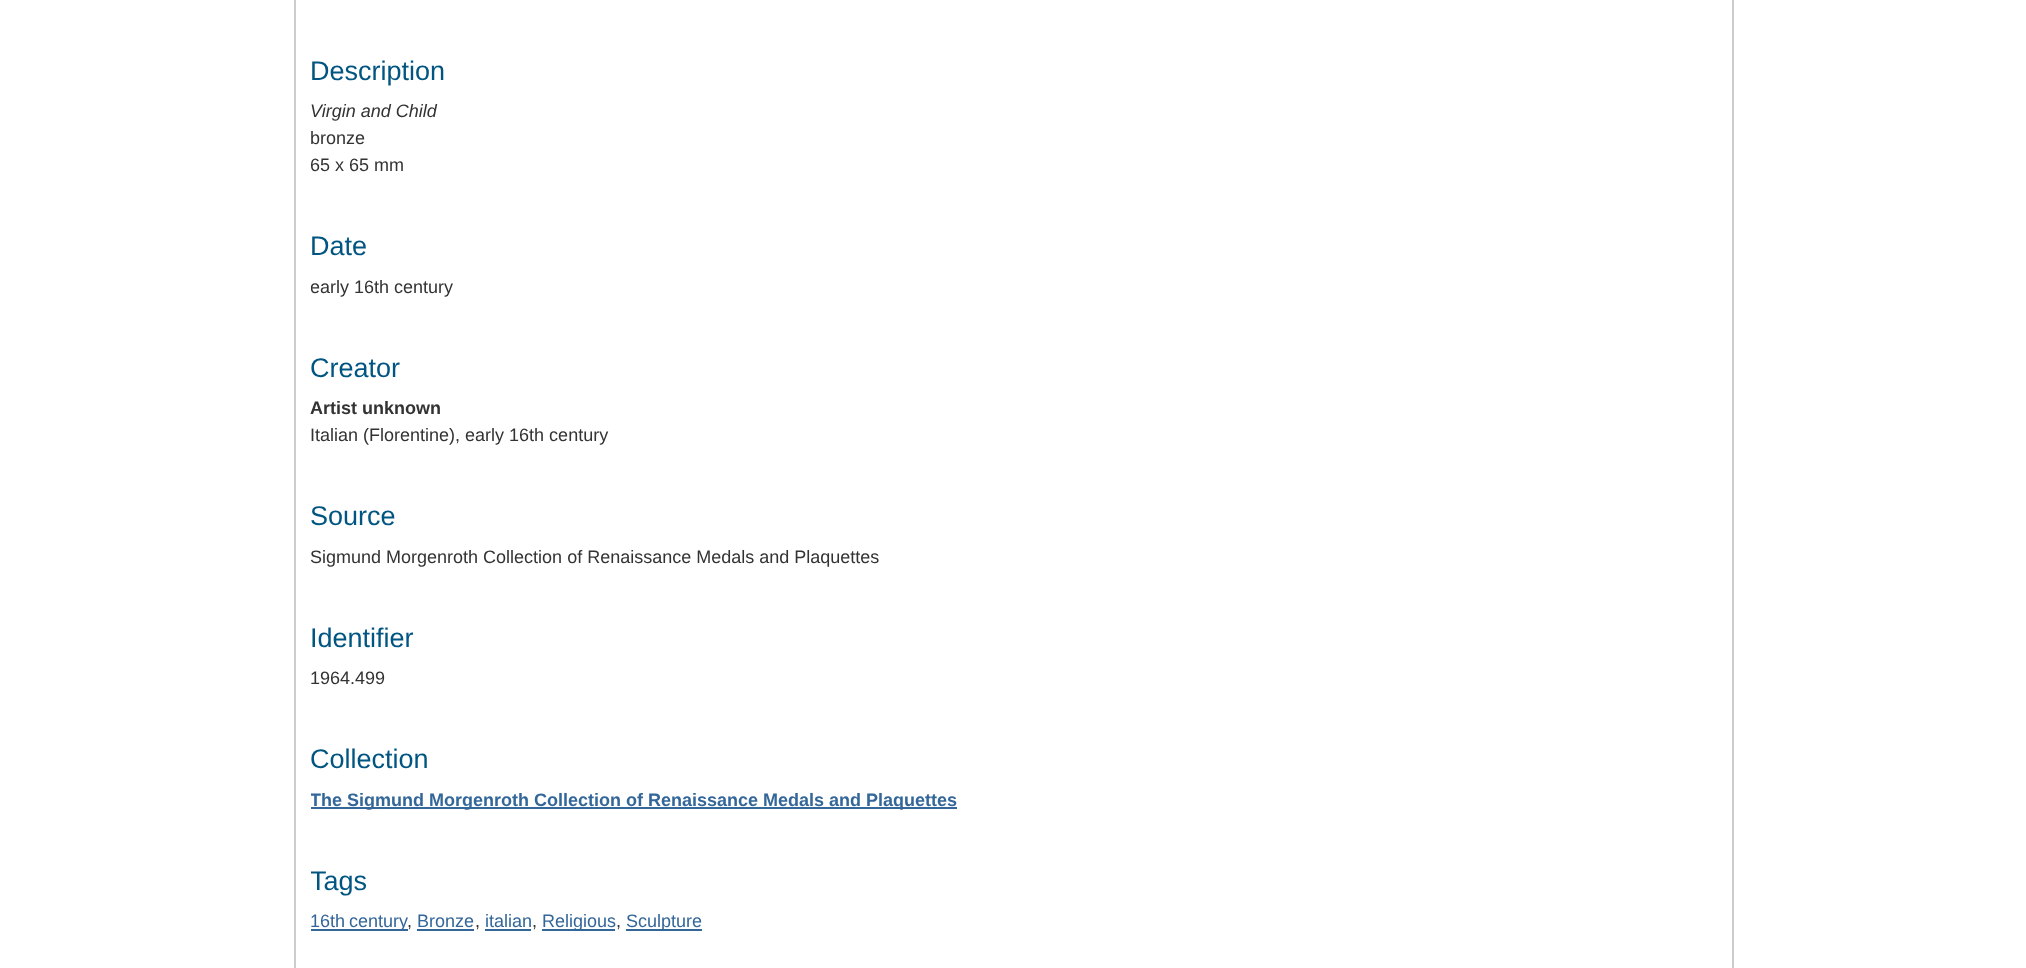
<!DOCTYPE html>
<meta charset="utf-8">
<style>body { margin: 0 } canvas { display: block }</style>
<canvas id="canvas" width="2026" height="968"></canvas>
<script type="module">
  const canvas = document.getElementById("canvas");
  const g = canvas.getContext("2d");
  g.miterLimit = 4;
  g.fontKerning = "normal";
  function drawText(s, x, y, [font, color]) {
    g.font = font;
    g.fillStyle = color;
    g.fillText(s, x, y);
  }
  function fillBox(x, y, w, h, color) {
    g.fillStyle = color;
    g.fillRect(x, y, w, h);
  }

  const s1 = ["27px Liberation Sans", "#015581"];
  const s2 = ["italic 18px Liberation Sans", "#333333"];
  const s3 = ["18px Liberation Sans", "#333333"];
  const s4 = ["bold 18px Liberation Sans", "#333333"];
  const s5 = ["bold 18px Liberation Sans", "#336699"];
  const s6 = ["18px Liberation Sans", "#336699"];

  fillBox(0, 0, 2026, 968, "#FFFFFF");
  g.strokeStyle = "#CCCCCC";
  g.lineWidth = 2;
  g.strokeRect(295, -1, 1438, 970);
  drawText("Description", 310, 80, s1);
  drawText("Virgin and Child", 310, 117, s2);
  drawText("bronze", 310, 144, s3);
  g.save();
  g.beginPath();
  g.rect(311, 30, 1407, 149);
  g.clip();
  drawText("65 x 65 mm", 310, 171, s3);
  g.restore();
  drawText("Date", 310, 255, s1);
  g.save();
  g.beginPath();
  g.rect(311, 206, 1407, 94);
  g.clip();
  drawText("early 16th century", 310, 293, s3);
  g.restore();
  drawText("Creator", 310, 377, s1);
  drawText("Artist unknown", 310, 414, s4);
  drawText("Italian (Florentine), early 16th century", 310, 441, s3);
  drawText("Source", 310, 525, s1);
  drawText("Sigmund Morgenroth Collection of Renaissance Medals and Plaquettes", 310, 563, s3);
  drawText("Identifier", 310, 647, s1);
  drawText("1964.499", 310, 684, s3);
  drawText("Collection", 310, 768, s1);
  fillBox(311, 807, 646, 2, "#336699");
  g.save();
  g.beginPath();
  g.rect(311, 719, 1407, 94);
  g.clip();
  drawText("The Sigmund Morgenroth Collection of Renaissance Medals and Plaquettes", 310, 806, s5);
  g.restore();
  g.save();
  g.beginPath();
  g.rect(311, 840, 1407, 95);
  g.clip();
  drawText("Tags", 310, 890, s1);
  g.restore();
  fillBox(311, 929, 97, 2, "#336699");
  g.wordSpacing = "-1px";
  drawText("16th century", 310, 927, s6);
  g.wordSpacing = "0px";
  drawText(",", 407, 927, s3);
  drawText("Bronze", 417, 927, s6);
  fillBox(417, 929, 57, 2, "#336699");
  drawText(",", 475, 927, s3);
  drawText("italian", 485, 927, s6);
  fillBox(485, 929, 46, 2, "#336699");
  drawText(",", 532, 927, s3);
  fillBox(542, 929, 73, 2, "#336699");
  drawText("Religious", 542, 927, s6);
  drawText(",", 616, 927, s3);
  fillBox(626, 929, 76, 2, "#336699");
  drawText("Sculpture", 626, 927, s6);
</script>
